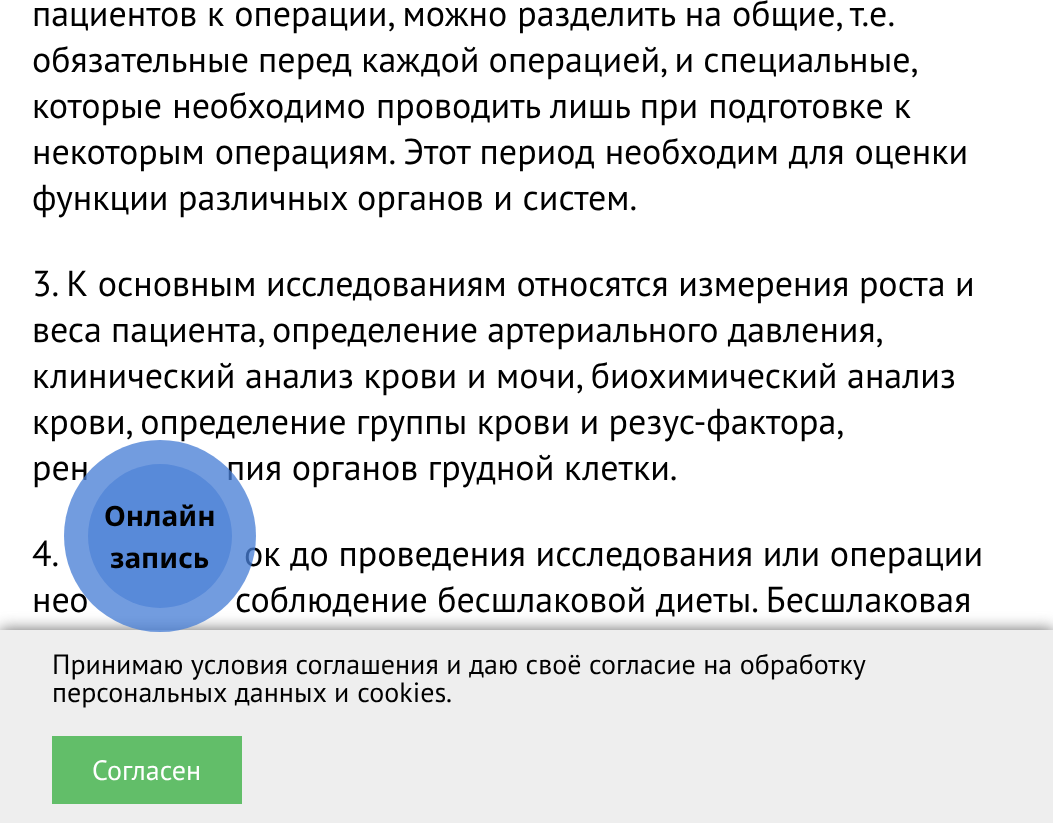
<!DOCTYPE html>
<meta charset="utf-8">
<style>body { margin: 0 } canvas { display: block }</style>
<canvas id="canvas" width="1053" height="823"></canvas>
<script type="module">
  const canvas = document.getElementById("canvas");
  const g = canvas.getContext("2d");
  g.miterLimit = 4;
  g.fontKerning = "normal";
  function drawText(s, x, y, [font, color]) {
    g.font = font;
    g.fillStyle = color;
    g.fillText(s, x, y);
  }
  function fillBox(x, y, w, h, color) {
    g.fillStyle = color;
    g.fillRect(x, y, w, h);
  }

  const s1 = ["36px PT Sans", "#000000"];
  const s2 = ["bold 28px Noto Sans", "#000000"];
  const s3 = ["28px PT Sans", "#000000"];
  const s4 = ["28px PT Sans", "#FFFFFF"];

  fillBox(0, 0, 1053, 823, "#FFFFFF");
  g.wordSpacing = "0.25px";
  drawText("пациентов к операции, можно разделить на общие, т.е.", 32, 26, s1);
  g.wordSpacing = "-0.5px";
  drawText("обязательные перед каждой операцией, и специальные,", 32, 72, s1);
  g.wordSpacing = "0.5px";
  drawText("которые необходимо проводить лишь при подготовке к", 32, 118, s1);
  g.wordSpacing = "0.25px";
  drawText("некоторым операциям. Этот период необходим для оценки", 32, 164, s1);
  g.wordSpacing = "0px";
  drawText("функции различных органов и систем.", 32, 210, s1);
  drawText("3. К основным исследованиям относятся измерения роста и", 32, 296, s1);
  g.wordSpacing = "-0.5px";
  drawText("веса пациента, определение артериального давления,", 32, 342, s1);
  g.wordSpacing = "0px";
  drawText("клинический анализ крови и мочи, биохимический анализ", 32, 388, s1);
  g.wordSpacing = "-0.25px";
  drawText("крови, определение группы крови и резус-фактора,", 32, 434, s1);
  g.wordSpacing = "0px";
  drawText("рен", 32, 480, s1);
  drawText("пия органов грудной клетки.", 226, 480, s1);
  drawText("4.", 32, 566, s1);
  drawText("ок до проведения исследования или операции", 244, 566, s1);
  drawText("нео", 32, 612, s1);
  drawText("соблюдение бесшлаковой диеты. Бесшлаковая", 235, 612, s1);
  g.fillStyle = "#666666";
  g.filter = "blur(8px)";
  g.beginPath();
  g.rect(0, 630, 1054, 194);
  g.fill();
  g.filter = "none";
  g.fillStyle = "rgba(72, 126, 213, 0.62)";
  g.beginPath();
  g.arc(160, 536, 72, 0, Math.PI * 2);
  g.fill();
  fillBox(0, 630, 1053, 193, "#EEEEEE");
  g.fillStyle = "rgba(72, 126, 213, 0.77)";
  g.beginPath();
  g.arc(160, 536, 96, 0, Math.PI * 2);
  g.fill();
  drawText("Онлайн", 104, 526, s2);
  drawText("запись", 110, 568, s2);
  drawText("Принимаю условия соглашения и даю своё согласие на обработку", 52, 674, s3);
  g.wordSpacing = "0.5px";
  drawText("персональных данных и cookies", 52, 702, s3);
  g.wordSpacing = "0px";
  drawText(".", 446, 702, s3);
  fillBox(52, 736, 190, 68, "#62BE69");
  drawText("Согласен", 92, 780, s4);
</script>
